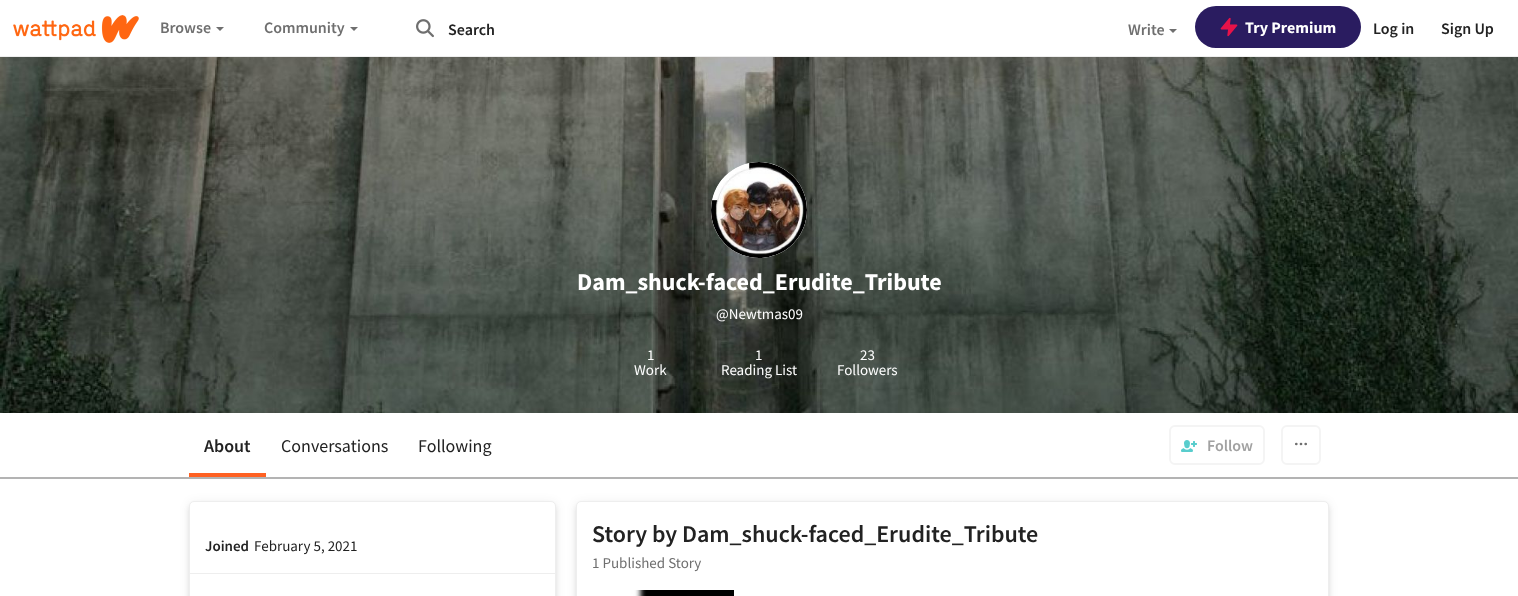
<!DOCTYPE html>
<meta charset="utf-8">
<style>body { margin: 0 } canvas { display: block }</style>
<canvas id="canvas" width="1518" height="596"></canvas>
<script type="module">
  const canvas = document.getElementById("canvas");
  const g = canvas.getContext("2d");
  g.miterLimit = 4;
  g.fontKerning = "normal";
  function drawText(s, x, y, [font, color]) {
    g.font = font;
    g.fillStyle = color;
    g.fillText(s, x, y);
  }
  function fillBox(x, y, w, h, color) {
    g.fillStyle = color;
    g.fillRect(x, y, w, h);
  }
  function fillRounded(x, y, w, h, r, color) {
    g.fillStyle = color;
    g.beginPath();
    g.roundRect(x, y, w, h, r);
    g.fill();
  }
  async function drawPicture(src, x, y, w, h) {
    const img = new Image();
    img.src = src;
    await img.decode();
    g.drawImage(img, x, y, w, h);
  }

  const s1 = ["600 16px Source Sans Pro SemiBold", "#6F6F6F"];
  const s2 = ["600 16px Source Sans Pro SemiBold", "#222222"];
  const s3 = ["bold 16px Source Sans Pro", "#FFFFFF"];
  const s4 = ["bold 24px Source Sans Pro", "#FFFFFF"];
  const s5 = ["15px Source Sans Pro", "#FFFFFF"];
  const s6 = ["600 18px Source Sans Pro SemiBold", "#222222"];
  const s7 = ["18px Source Sans Pro", "#222222"];
  const s8 = ["600 16px Source Sans Pro SemiBold", "#A1A1A1"];
  const s9 = ["600 15px Source Sans Pro SemiBold", "#222222"];
  const s10 = ["15px Source Sans Pro", "#222222"];
  const s11 = ["600 24px Source Sans Pro SemiBold", "#222222"];
  const s12 = ["15px Source Sans Pro", "#6F6F6F"];

  fillBox(0, 0, 1518, 596, "#FFFFFF");
  fillBox(0, 56, 1518, 1, "#EEEEEE");
  await drawPicture("pic1.png", 13, 15, 126, 28);
  drawText("Browse", 160, 33, s1);
  g.beginPath();
  g.moveTo(216, 27);
  g.lineTo(224, 27);
  g.lineTo(220, 31);
  g.closePath();
  g.fill();
  drawText("Community", 264, 33, s1);
  g.beginPath();
  g.moveTo(350, 27);
  g.lineTo(358, 27);
  g.lineTo(354, 31);
  g.closePath();
  g.fill();
  await drawPicture("pic2.png", 416, 19, 18, 19);
  drawText("Search", 448, 35, s2);
  drawText("Write", 1128, 35, s1);
  g.beginPath();
  g.moveTo(1169, 29);
  g.lineTo(1177, 29);
  g.lineTo(1173, 33);
  g.closePath();
  g.fill();
  fillRounded(1195, 6, 166, 42, 21, "#2A1C60");
  await drawPicture("pic3.png", 1220, 17, 18, 20);
  drawText("Try Premium", 1245, 33, s3);
  drawText("Log in", 1373, 34, s2);
  drawText("Sign Up", 1441, 34, s2);
  await drawPicture("pic4.png", 0, 57, 1518, 356);
  g.fillStyle = "#EEEEEE";
  g.beginPath();
  g.arc(759, 210, 48, 0, Math.PI * 2);
  g.fill();
  await drawPicture("pic5.png", 711, 162, 96, 96);
  drawText("Dam_shuck-faced_Erudite_Tribute", 577, 290, s4);
  drawText("@Newtmas09", 716, 319, s5);
  drawText("1", 647, 360, s5);
  drawText("Work", 634, 375, s5);
  drawText("1", 755, 360, s5);
  drawText("Reading List", 721, 375, s5);
  drawText("23", 860, 360, s5);
  drawText("Followers", 837, 375, s5);
  fillBox(0, 477, 1518, 2, "#B3B3B3");
  fillBox(189, 473, 77, 4, "#FF6122");
  drawText("About", 204, 452, s6);
  drawText("Conversations", 281, 452, s7);
  drawText("Following", 418, 452, s7);
  g.beginPath();
  g.roundRect(1170, 426, 94, 38, 5);
  g.strokeStyle = "#F4F4F4";
  g.lineWidth = 2;
  g.stroke();
  await drawPicture("pic6.png", 1181, 440, 16, 12);
  drawText("Follow", 1207, 451, s8);
  g.beginPath();
  g.roundRect(1282, 426, 38, 38, 5);
  g.stroke();
  g.beginPath();
  g.arc(1296.3, 444, 0.7, 0, Math.PI * 2);
  g.strokeStyle = "#6F6F6F";
  g.lineWidth = 1.3;
  g.stroke();
  g.beginPath();
  g.arc(1301, 444, 0.7, 0, Math.PI * 2);
  g.stroke();
  g.beginPath();
  g.arc(1305.7, 444, 0.7, 0, Math.PI * 2);
  g.stroke();
  g.fillStyle = "rgba(34, 34, 34, 0.1)";
  g.filter = "blur(2.5px)";
  g.beginPath();
  g.roundRect(189, 505, 367, 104, 5);
  g.fill();
  g.filter = "none";
  g.fillStyle = "rgba(34, 34, 34, 0.08)";
  g.filter = "blur(5px)";
  g.beginPath();
  g.roundRect(189, 502, 367, 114, 5);
  g.fill();
  g.filter = "none";
  g.fillStyle = "#FFFFFF";
  g.beginPath();
  g.roundRect(189.5, 501.5, 366, 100, 4.5);
  g.fill();
  g.strokeStyle = "#EEEEEE";
  g.lineWidth = 1;
  g.stroke();
  drawText("Joined", 205, 551, s9);
  drawText("February 5, 2021", 254, 551, s10);
  fillBox(190, 573, 365, 1, "#EEEEEE");
  g.fillStyle = "rgba(34, 34, 34, 0.1)";
  g.filter = "blur(2.5px)";
  g.beginPath();
  g.roundRect(576, 505, 753, 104, 5);
  g.fill();
  g.filter = "none";
  g.fillStyle = "rgba(34, 34, 34, 0.08)";
  g.filter = "blur(5px)";
  g.beginPath();
  g.roundRect(576, 502, 753, 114, 5);
  g.fill();
  g.filter = "none";
  g.fillStyle = "#FFFFFF";
  g.beginPath();
  g.roundRect(576.5, 501.5, 752, 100, 4.5);
  g.fill();
  g.stroke();
  drawText("Story by Dam_shuck-faced_Erudite_Tribute", 592, 542, s11);
  drawText("1 Published Story", 592, 568, s12);
  await drawPicture("pic7.png", 592, 590, 142, 6);
</script>
